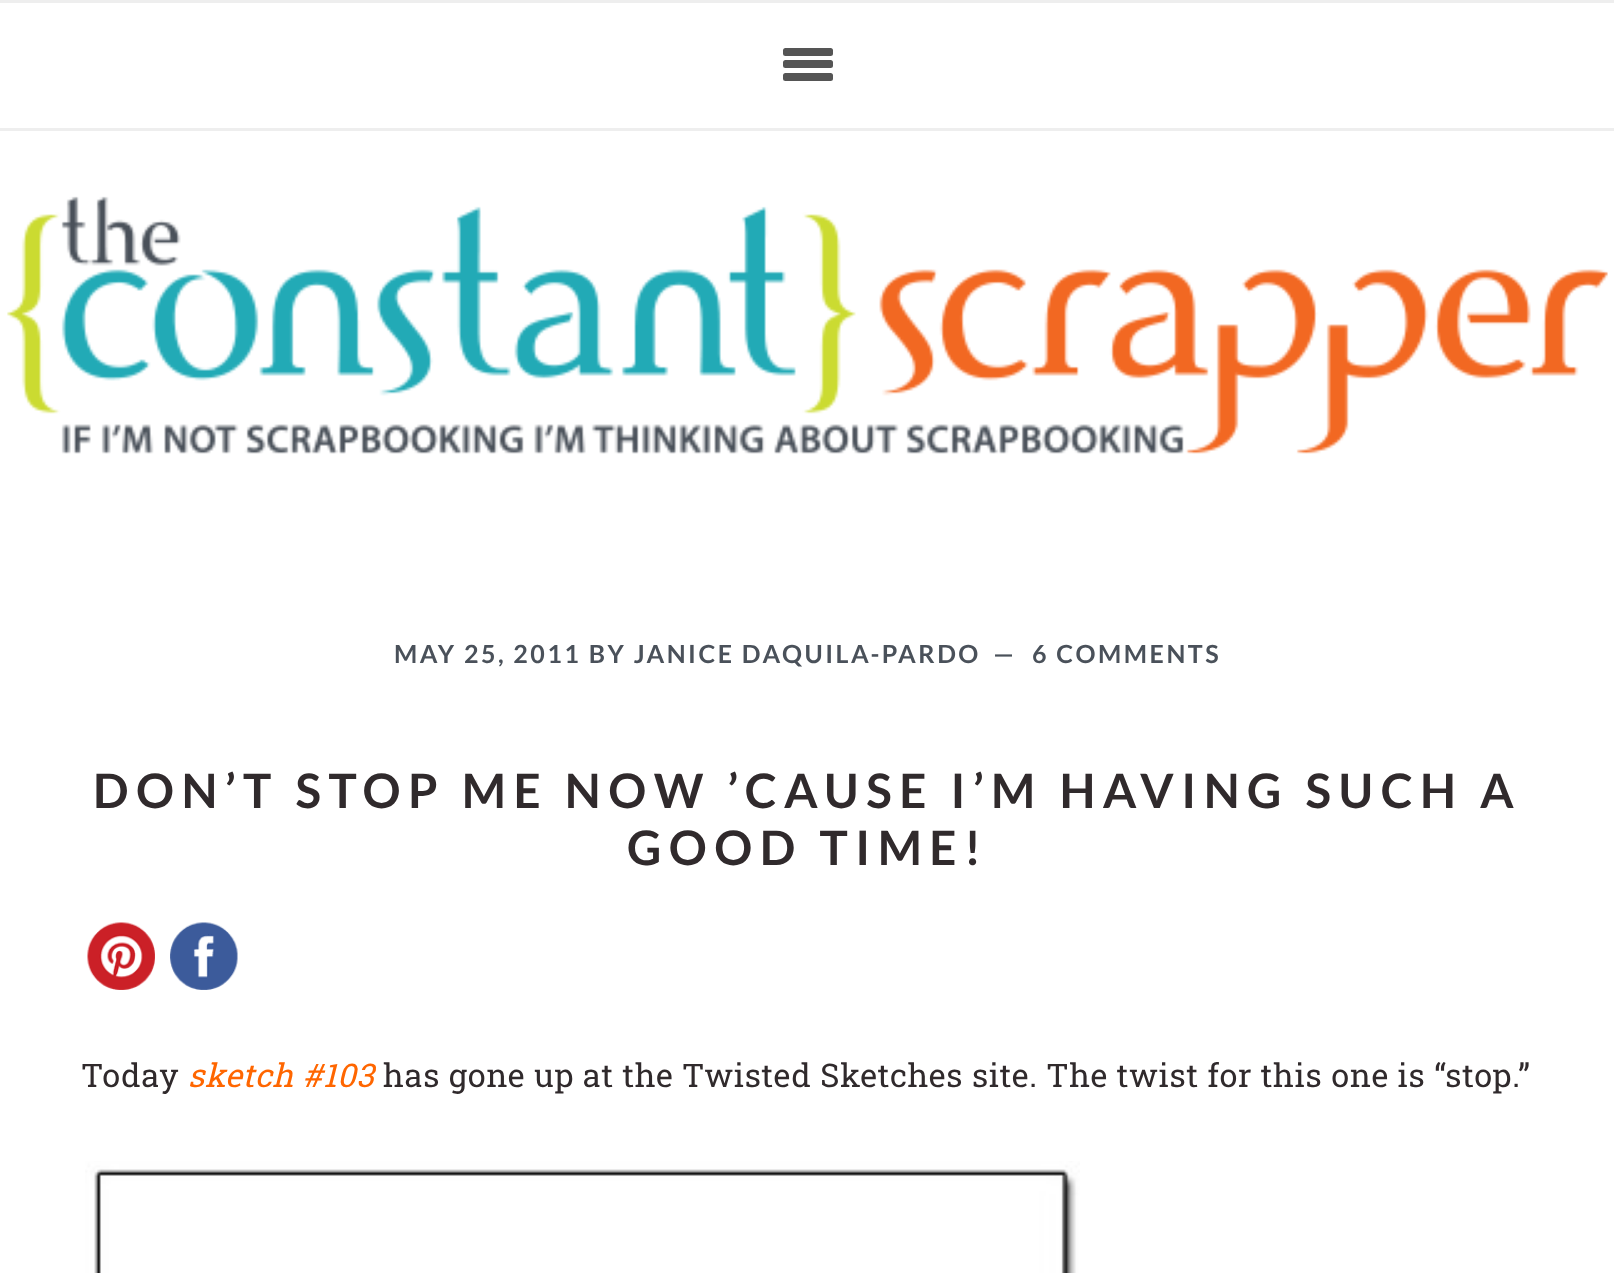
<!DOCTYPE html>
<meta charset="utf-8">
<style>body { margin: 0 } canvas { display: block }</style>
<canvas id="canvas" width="1614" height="1273"></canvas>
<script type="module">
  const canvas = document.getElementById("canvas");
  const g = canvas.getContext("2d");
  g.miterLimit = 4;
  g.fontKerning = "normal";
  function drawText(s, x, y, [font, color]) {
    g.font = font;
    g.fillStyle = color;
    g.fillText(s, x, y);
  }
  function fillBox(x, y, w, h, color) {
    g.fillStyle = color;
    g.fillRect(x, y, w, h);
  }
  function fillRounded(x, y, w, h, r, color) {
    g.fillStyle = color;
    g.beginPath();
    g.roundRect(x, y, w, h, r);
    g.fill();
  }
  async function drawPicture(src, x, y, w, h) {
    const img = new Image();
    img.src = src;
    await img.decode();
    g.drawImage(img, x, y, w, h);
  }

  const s1 = ["bold 25px Lato", "#4A515A"];
  const s2 = ["bold 47.5px Lato", "#302A2C"];
  const s3 = ["32.5px Roboto Slab", "#302A2C"];
  const s4 = ["italic 32.5px Roboto Slab", "#FF6600"];

  fillBox(0, 0, 1614, 1273, "#FFFFFF");
  fillBox(0, 0, 1614, 3, "#EEEEEE");
  fillBox(0, 128, 1614, 3, "#EEEEEE");
  fillRounded(783, 60, 50, 8, 2.5, "#555555");
  fillRounded(783, 48, 50, 8, 2.5, "#555555");
  fillRounded(783, 73, 50, 8, 2.5, "#555555");
  await drawPicture("pic1.png", 7, 196, 1601, 258);
  g.letterSpacing = "2.5px";
  drawText("MAY 25, 2011 BY JANICE DAQUILA-PARDO", 394, 663, s1);
  drawText("—", 993, 663, s1);
  drawText("6 COMMENTS", 1032, 663, s1);
  g.letterSpacing = "7.5px";
  drawText("DON’T STOP ME NOW ’CAUSE I’M HAVING SUCH A", 93, 808, s2);
  drawText("GOOD TIME!", 627, 865, s2);
  await drawPicture("pic2.png", 87, 922, 68, 68);
  await drawPicture("pic3.png", 170, 922, 68, 68);
  g.letterSpacing = "0.65px";
  drawText("Today", 81, 1087, s3);
  drawText("sketch #103", 188, 1087, s4);
  drawText("has gone up at the Twisted Sketches site. The twist for this one is “stop.”", 383, 1087, s3);
  await drawPicture("pic4.png", 85, 1161, 995, 112);
</script>
